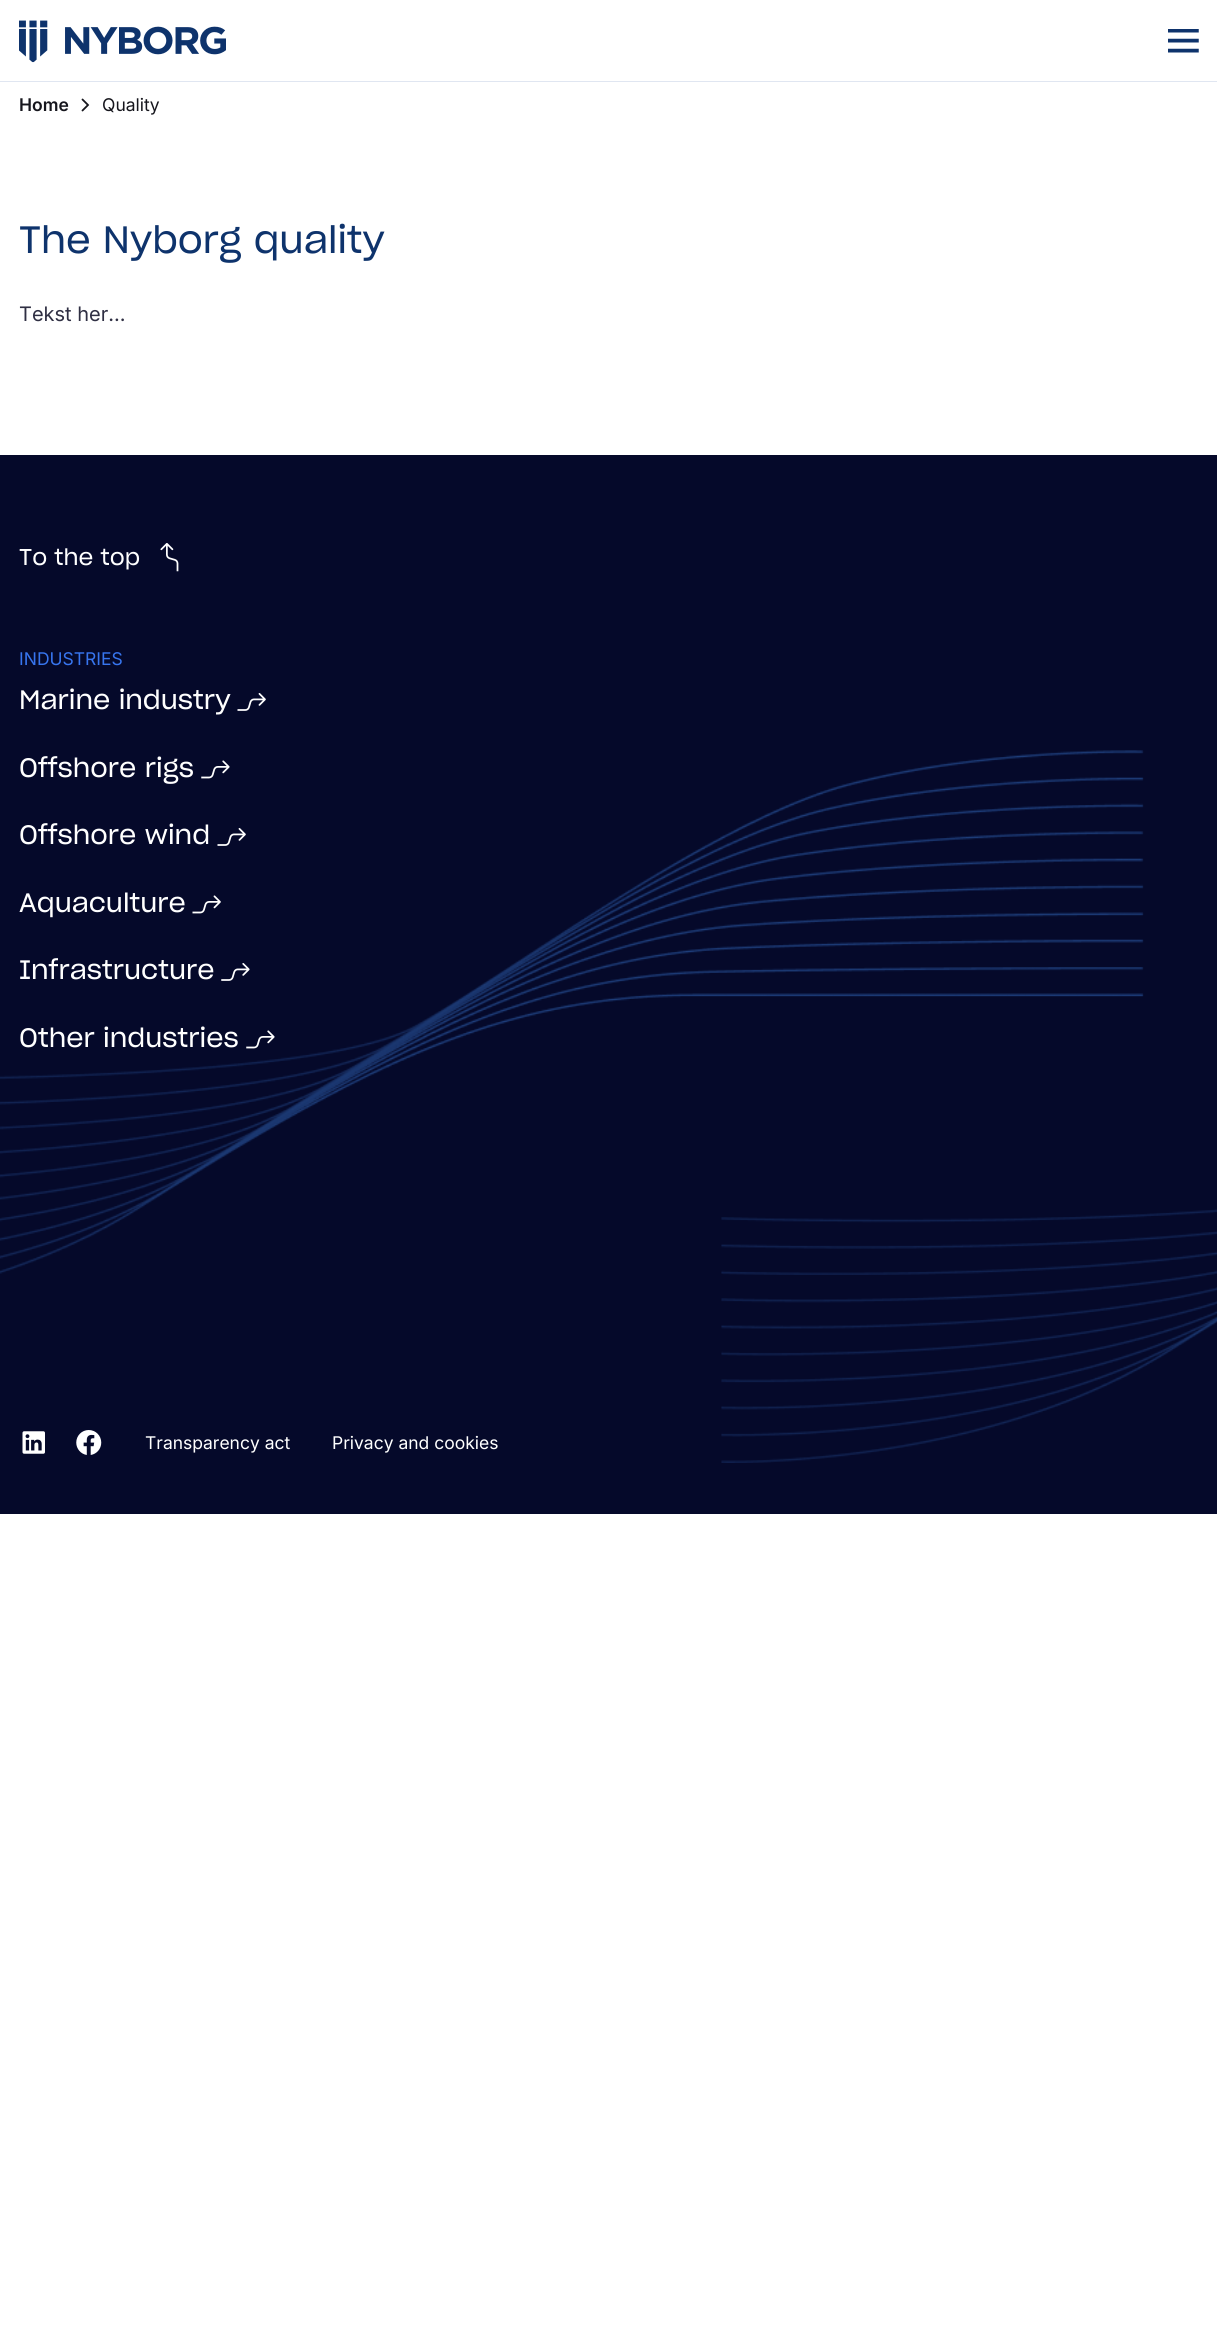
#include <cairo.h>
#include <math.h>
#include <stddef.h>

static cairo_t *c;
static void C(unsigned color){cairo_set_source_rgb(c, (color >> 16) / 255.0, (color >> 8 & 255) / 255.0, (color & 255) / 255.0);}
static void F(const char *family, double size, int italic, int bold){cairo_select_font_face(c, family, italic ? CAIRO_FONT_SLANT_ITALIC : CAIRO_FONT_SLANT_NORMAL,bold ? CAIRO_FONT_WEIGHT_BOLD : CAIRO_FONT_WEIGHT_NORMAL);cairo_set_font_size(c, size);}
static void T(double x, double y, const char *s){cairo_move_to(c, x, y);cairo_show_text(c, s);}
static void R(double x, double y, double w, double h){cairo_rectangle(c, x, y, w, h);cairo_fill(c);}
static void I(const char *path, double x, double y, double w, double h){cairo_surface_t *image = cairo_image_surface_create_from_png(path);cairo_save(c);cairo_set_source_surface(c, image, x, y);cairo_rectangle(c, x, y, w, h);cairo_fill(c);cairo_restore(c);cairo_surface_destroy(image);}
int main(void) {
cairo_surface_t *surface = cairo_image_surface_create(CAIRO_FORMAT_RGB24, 1217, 2332);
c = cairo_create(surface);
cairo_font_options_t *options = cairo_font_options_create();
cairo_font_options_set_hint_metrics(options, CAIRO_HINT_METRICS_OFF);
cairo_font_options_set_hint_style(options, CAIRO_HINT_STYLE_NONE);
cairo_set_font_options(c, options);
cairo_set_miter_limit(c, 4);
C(0xffffff);
cairo_paint(c);
C(0xe0e6f1);
R(0,81,1217,1);
I("1.png",19,20,207,43);
I("2.png",1168,29,31,24);
F("Inter SemiBold",17.5,0,0);
C(0x16161d);
T(19,111,"Home");
cairo_new_path(c);
cairo_move_to(c,82.5,99.5);
cairo_line_to(c,88,105);
cairo_line_to(c,82.5,110.5);
cairo_set_line_width(c,1.8);
cairo_set_line_cap(c,CAIRO_LINE_CAP_ROUND);
cairo_stroke(c);
F("Inter",17.5,0,0);
T(102,111,"Quality");
F("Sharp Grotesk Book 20",37.5,0,0);
C(0x0e336c);
T(19,253,"The Nyborg quality");
F("Inter",20,0,0);
C(0x2f2f43);
T(19,321,"Tekst her...");
C(0x05092a);
R(0,455,1217,1059);
I("3.png",0,750,1217,713);
F("Sharp Grotesk Book 20",22.5,0,0);
C(0xffffff);
T(19,565,"To the top");
I("4.png",160,543,19,29);
F("Inter",17.5,0,0);
C(0x3775ef);
T(19,665,"INDUSTRIES");
F("Sharp Grotesk Book 20",26.25,0,0);
C(0xffffff);
T(19,709,"Marine industry");
I("5.png",237,693,29,18);
T(19,777,"Offshore rigs");
I("6.png",201,760,29,19);
T(19,844,"Offshore wind");
I("5.png",217,828,29,18);
T(19,912,"Aquaculture");
I("7.png",192,895,29,19);
T(19,979,"Infrastructure");
I("8.png",221,963,29,18);
T(19,1047,"Other industries");
I("6.png",246,1030,29,19);
I("9.png",22,1431,23,23);
I("10.png",76,1430,26,25);
F("Inter",17.5,0,0);
T(145,1449,"Transparency act");
T(332,1449,"Privacy and cookies");
cairo_surface_write_to_png(surface, "o.png");
cairo_font_options_destroy(options);
cairo_destroy(c);
cairo_surface_destroy(surface);
return 0;
}
